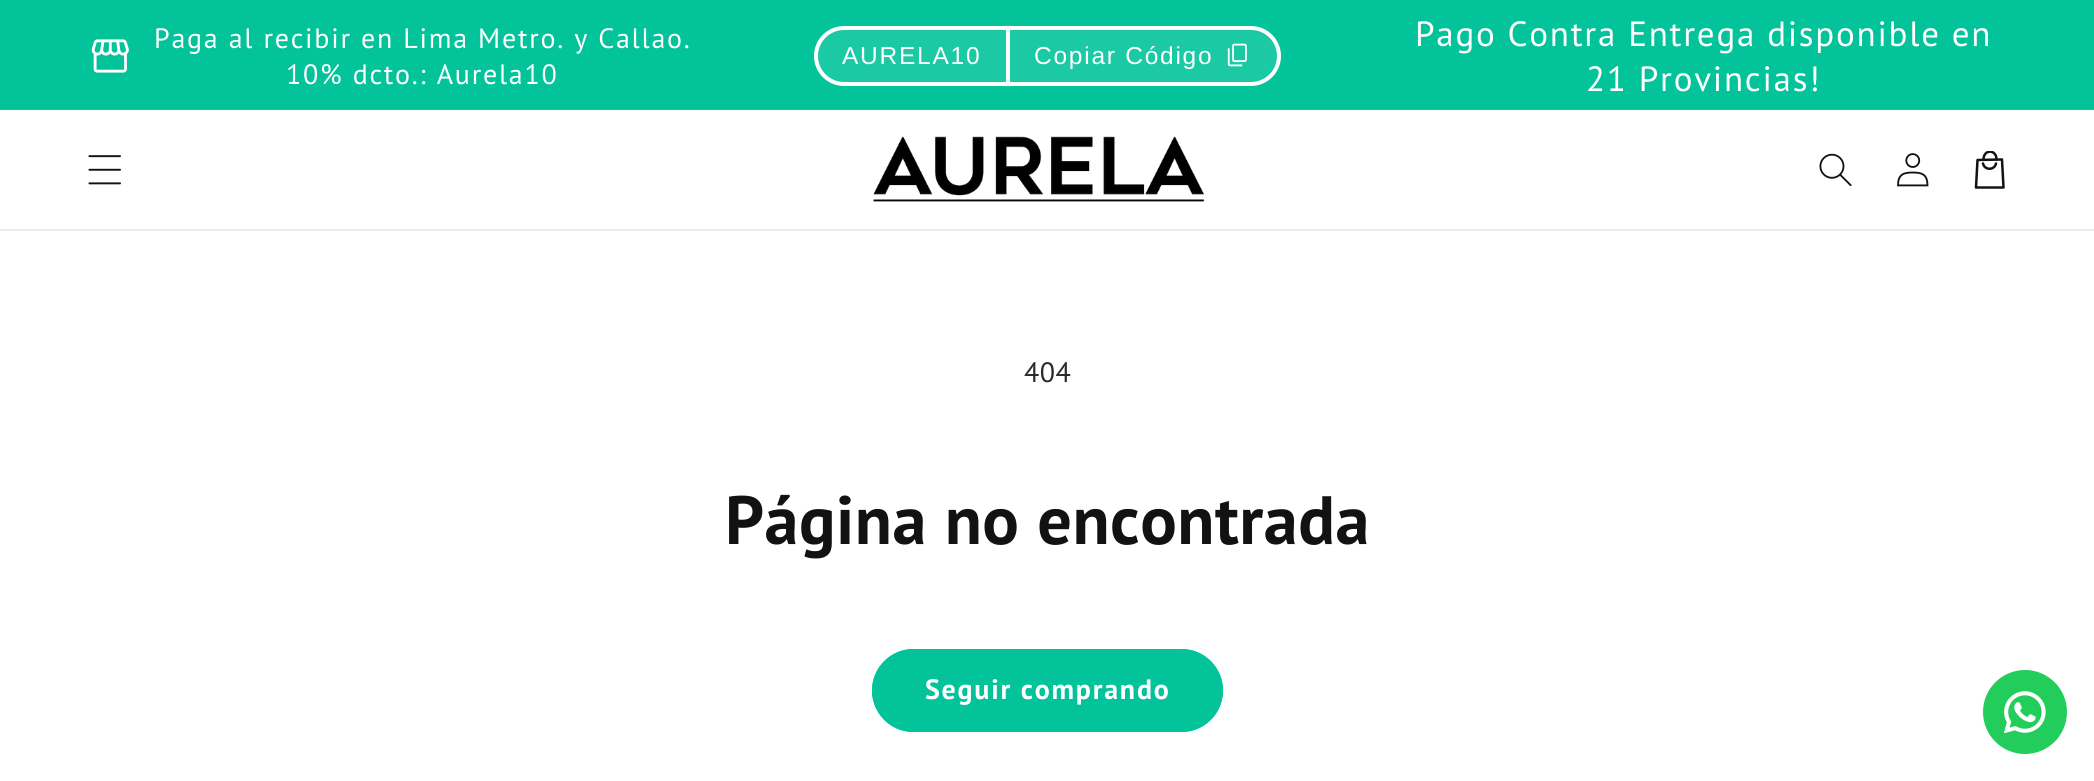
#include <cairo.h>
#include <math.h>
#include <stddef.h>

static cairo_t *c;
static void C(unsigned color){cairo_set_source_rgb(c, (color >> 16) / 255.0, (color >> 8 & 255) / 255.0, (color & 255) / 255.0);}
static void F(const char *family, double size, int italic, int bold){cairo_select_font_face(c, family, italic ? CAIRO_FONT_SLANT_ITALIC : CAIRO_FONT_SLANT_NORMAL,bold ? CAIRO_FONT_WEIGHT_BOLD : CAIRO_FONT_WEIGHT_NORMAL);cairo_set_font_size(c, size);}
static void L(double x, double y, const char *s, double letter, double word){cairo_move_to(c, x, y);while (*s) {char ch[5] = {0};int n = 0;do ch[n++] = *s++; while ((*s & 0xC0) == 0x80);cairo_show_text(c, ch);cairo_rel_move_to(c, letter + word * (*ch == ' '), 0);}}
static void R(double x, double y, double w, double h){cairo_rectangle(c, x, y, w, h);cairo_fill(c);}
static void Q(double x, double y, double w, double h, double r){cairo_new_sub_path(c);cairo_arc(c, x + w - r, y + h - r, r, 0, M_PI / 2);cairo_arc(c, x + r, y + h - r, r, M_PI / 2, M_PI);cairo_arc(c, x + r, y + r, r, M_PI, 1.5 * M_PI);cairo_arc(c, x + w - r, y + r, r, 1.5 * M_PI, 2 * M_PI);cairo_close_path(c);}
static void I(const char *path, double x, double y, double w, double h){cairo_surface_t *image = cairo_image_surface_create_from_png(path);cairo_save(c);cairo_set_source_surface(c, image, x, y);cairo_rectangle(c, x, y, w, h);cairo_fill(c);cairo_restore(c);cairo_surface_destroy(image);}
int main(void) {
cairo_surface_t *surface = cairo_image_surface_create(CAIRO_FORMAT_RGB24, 2094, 781);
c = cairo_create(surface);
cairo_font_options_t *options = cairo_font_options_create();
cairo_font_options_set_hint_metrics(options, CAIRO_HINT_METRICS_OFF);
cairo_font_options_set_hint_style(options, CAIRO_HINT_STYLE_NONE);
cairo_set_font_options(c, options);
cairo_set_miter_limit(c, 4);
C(0xffffff);
cairo_paint(c);
C(0x02c39a);
R(0,0,2094,109);
C(0x16c8a2);
R(0,109,2094,1);
I("1.png",91,39,38,34);
F("PT Sans",28,0,0);
C(0xffffff);
L(154,48,"Paga al recibir en Lima Metro. y Callao.",1.75,0);
L(286,84,"10% dcto.: Aurela10",1.75,0);
C(0x1bc9a4);
Q(816,28,463,56,28);
cairo_fill_preserve(c);
C(0xffffff);
cairo_set_line_width(c,4);
cairo_stroke(c);
R(1006,30,4,52);
F("Liberation Sans",24.5,0,0);
L(842,64,"AURELA10",1.75,0);
L(1034,64,"Copiar Código",1.75,0);
I("2.png",1227,43,20,24);
F("PT Sans",35,0,0);
L(1415,46,"Pago Contra Entrega disponible en",1.75,0);
L(1586,91,"21 Provincias!",1.75,0);
C(0xececec);
R(0,229,2094,2);
I("3.png",88,155,33,30);
I("4.png",873,136,332,66);
I("5.png",1819,153,33,34);
I("6.png",1897,153,32,34);
cairo_new_path(c);
cairo_move_to(c,1977.5,160);
cairo_line_to(c,2002,159.5);
cairo_line_to(c,2003.5,187.5);
cairo_line_to(c,1976,187.5);
cairo_close_path(c);
C(0x121212);
cairo_set_line_width(c,2.5);
cairo_set_line_cap(c,CAIRO_LINE_CAP_ROUND);
cairo_set_line_join(c,CAIRO_LINE_JOIN_ROUND);
cairo_stroke(c);
cairo_save(c);
cairo_rectangle(c,1971,151,38,38);
cairo_clip(c);
cairo_new_path(c);
cairo_move_to(c,1983.5,159.5);
cairo_curve_to(c,1983.5,149,1996.5,149,1996.5,159.5);
cairo_stroke(c);
cairo_restore(c);
cairo_new_path(c);
cairo_move_to(c,1983,163.5);
cairo_curve_to(c,1984.5,170.5,1994.5,170.5,1996,163.5);
cairo_stroke(c);
F("PT Sans",28,0,0);
C(0x2a2a2a);
L(1024,382,"404",.5,0);
F("PT Sans",68.25,0,1);
C(0x121212);
L(725,544,"Página no encontrada",.5,0);
C(0x02c39a);
Q(872,649,351,83,41.5);
cairo_fill(c);
Q(873,650,349,81,40.5);
cairo_set_line_width(c,2);
cairo_set_line_cap(c,CAIRO_LINE_CAP_BUTT);
cairo_set_line_join(c,CAIRO_LINE_JOIN_MITER);
cairo_stroke(c);
F("PT Sans",28,0,1);
C(0xffffff);
L(925,699,"Seguir comprando",1.75,0);
C(0x22cd5b);
cairo_new_path(c);
cairo_arc(c,2025,712,42,0,2 * M_PI);
cairo_fill(c);
I("7.png",2004,691,42,42);
cairo_surface_write_to_png(surface, "o.png");
cairo_font_options_destroy(options);
cairo_destroy(c);
cairo_surface_destroy(surface);
return 0;
}
